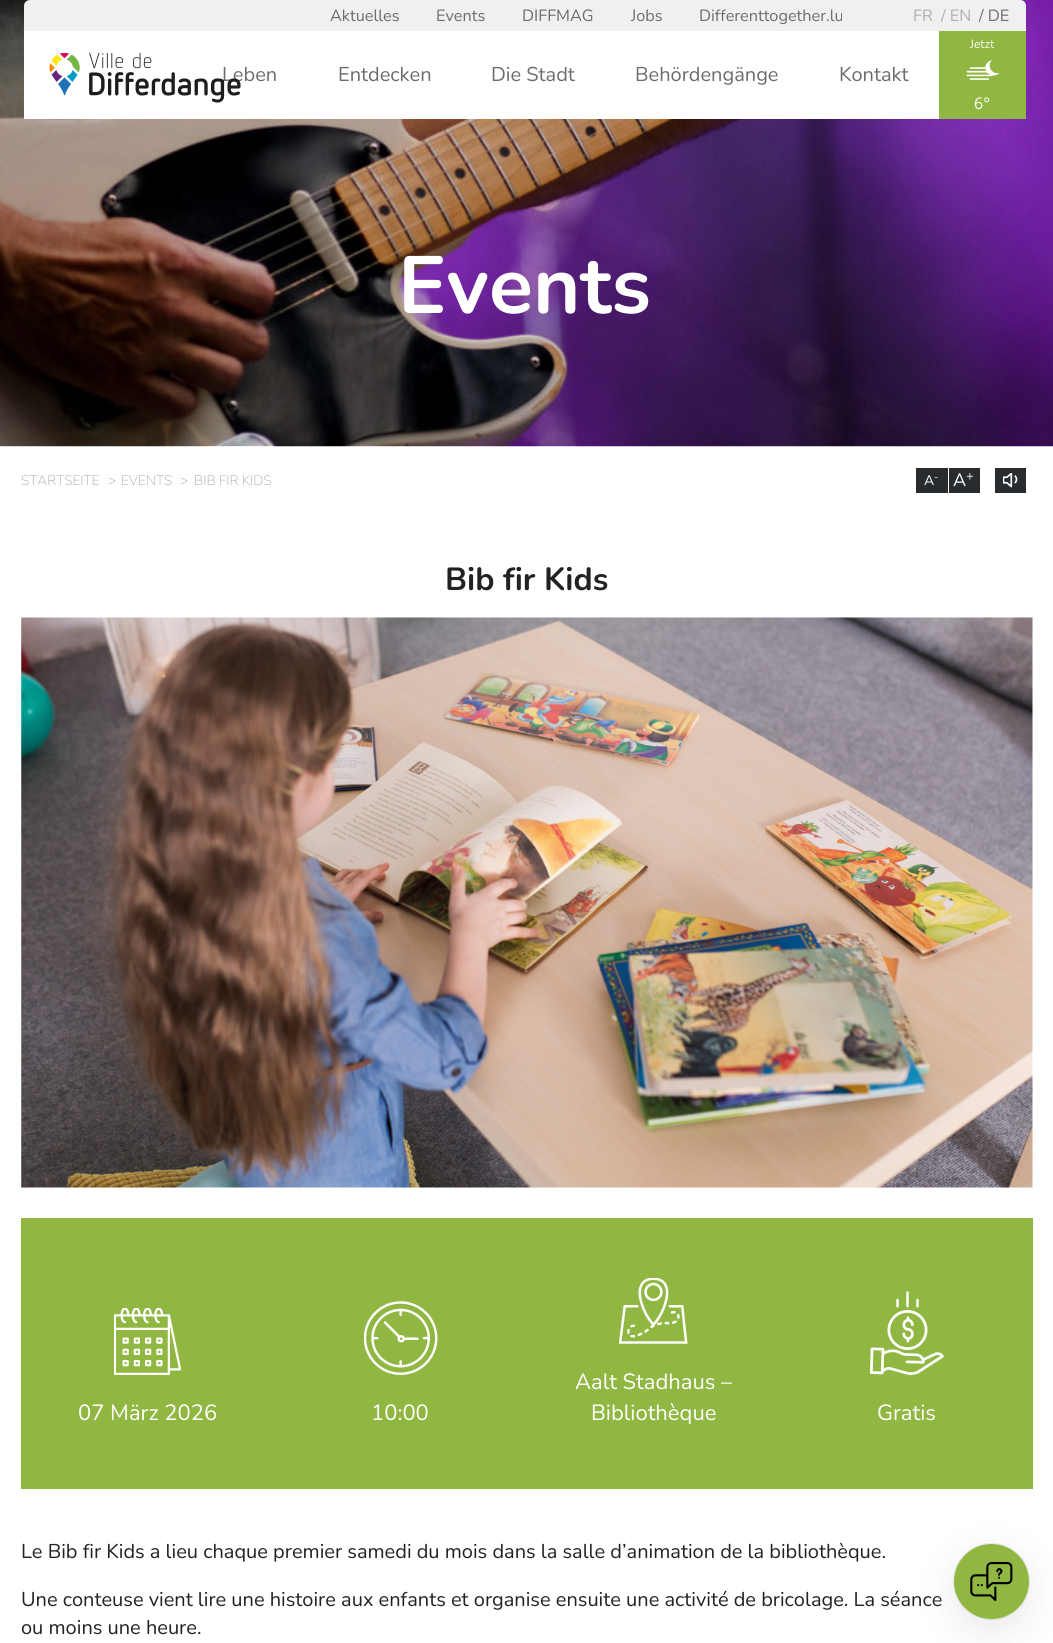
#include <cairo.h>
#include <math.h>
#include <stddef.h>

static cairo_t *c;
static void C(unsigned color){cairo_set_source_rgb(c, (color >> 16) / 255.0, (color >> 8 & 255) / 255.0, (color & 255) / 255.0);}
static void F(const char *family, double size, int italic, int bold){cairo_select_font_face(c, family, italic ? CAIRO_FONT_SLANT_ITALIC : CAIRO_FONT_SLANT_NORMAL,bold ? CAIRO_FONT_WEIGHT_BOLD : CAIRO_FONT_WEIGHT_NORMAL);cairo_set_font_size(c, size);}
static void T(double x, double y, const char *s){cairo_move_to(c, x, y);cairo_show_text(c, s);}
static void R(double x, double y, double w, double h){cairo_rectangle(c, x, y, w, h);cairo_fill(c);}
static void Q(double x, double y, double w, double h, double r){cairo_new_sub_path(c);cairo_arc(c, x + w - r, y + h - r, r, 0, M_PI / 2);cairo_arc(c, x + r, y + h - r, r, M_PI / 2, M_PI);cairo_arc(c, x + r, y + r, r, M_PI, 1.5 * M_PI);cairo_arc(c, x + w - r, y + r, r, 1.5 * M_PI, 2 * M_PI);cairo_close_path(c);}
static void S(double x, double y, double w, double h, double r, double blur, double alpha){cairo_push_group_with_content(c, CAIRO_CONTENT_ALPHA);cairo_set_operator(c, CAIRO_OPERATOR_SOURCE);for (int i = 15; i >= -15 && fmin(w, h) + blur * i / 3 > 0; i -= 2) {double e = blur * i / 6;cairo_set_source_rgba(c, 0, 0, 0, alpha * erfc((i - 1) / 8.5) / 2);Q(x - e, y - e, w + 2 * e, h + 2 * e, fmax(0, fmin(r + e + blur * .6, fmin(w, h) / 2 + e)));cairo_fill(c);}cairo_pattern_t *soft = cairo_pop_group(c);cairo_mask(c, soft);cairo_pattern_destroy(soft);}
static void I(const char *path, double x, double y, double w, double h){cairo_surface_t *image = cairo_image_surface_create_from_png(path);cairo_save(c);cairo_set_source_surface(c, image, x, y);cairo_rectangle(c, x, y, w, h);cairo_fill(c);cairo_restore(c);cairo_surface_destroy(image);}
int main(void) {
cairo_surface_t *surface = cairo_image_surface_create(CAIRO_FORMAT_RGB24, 1053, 1643);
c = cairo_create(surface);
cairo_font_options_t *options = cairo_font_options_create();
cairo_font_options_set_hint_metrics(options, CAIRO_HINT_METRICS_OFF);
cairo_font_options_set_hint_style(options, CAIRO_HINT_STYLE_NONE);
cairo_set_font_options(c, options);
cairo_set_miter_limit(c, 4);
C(0xffffff);
cairo_paint(c);
I("4.png",0,0,1053,447);
C(0xf0f0f0);
cairo_new_path(c);
cairo_move_to(c,30,0);
cairo_line_to(c,1020,0);
cairo_curve_to(c,1023.5,0,1026,2.5,1026,6);
cairo_line_to(c,1026,31);
cairo_line_to(c,24,31);
cairo_line_to(c,24,6);
cairo_curve_to(c,24,2.5,26.5,0,30,0);
cairo_close_path(c);
cairo_fill(c);
F("Nunito",16.25,0,0);
C(0x6c6c6c);
T(330,21,"Aktuelles");
T(436,21,"Events");
T(522,21,"DIFFMAG");
T(631,21,"Jobs");
T(699,21,"Differenttogether.lu");
C(0xaeaeae);
T(913,21,"FR");
T(941,21,"/ EN");
C(0x6c6c6c);
T(979,21,"/ DE");
C(0xffffff);
R(24,31,915,88);
F("Nunito",20,0,0);
C(0x6c6c6c);
T(222,81,"Leben");
I("1.png",49,53,192,50);
T(338,81,"Entdecken");
T(491,81,"Die Stadt");
T(635,81,"Behördengänge");
T(839,81,"Kontakt");
C(0x90b742);
R(939,31,87,88);
F("Nunito",12,0,0);
C(0xffffff);
T(970,48,"Jetzt");
I("2.png",985,60,15,16);
I("3.png",966,67,27,13);
F("Open Sans",16,0,0);
T(974,109,"6°");
F("Nunito",81,0,1);
T(398,313,"Events");
F("Nunito ExtraLight",13.75,0,0);
C(0xa6a6a6);
T(21,485,"STARTSEITE");
T(108,485,">");
T(121,485,"EVENTS");
T(180,485,">");
T(194,485,"BIB FIR KIDS");
C(0x292c2f);
R(916,468,32,25);
F("Nunito",14,0,0);
C(0xffffff);
T(924,485,"A");
F("Nunito",10,0,0);
T(934,480,"-");
C(0x292c2f);
R(949,468,31,25);
F("Nunito",18,0,0);
C(0xffffff);
T(953,486,"A");
F("Nunito",13,0,0);
T(966,480,"+");
C(0x292c2f);
R(995,468,31,25);
I("5.png",1003,473,15,15);
F("Nunito",32,0,1);
C(0x222222);
T(445,590,"Bib fir Kids");
I("6.png",21,617,1012,571);
C(0x90b742);
R(21,1218,1012,271);
I("7.png",114,1308,67,67);
F("Nunito",22,0,0);
C(0xffffff);
T(78,1420,"07 März 2026");
I("8.png",364,1301,74,74);
T(371,1420,"10:00");
I("9.png",619,1278,69,66);
T(575,1389,"Aalt Stadhaus –");
T(591,1420,"Bibliothèque");
I("10.png",870,1291,74,84);
T(877,1420,"Gratis");
F("Nunito",20,0,0);
C(0x222222);
T(21,1558,"Le Bib fir Kids a lieu chaque premier samedi du mois dans la salle d’animation de la bibliothèque.");
T(21,1606,"Une conteuse vient lire une histoire aux enfants et organise ensuite une activité de bricolage. La séance");
T(21,1634,"ou moins une heure.");
cairo_new_path(c);
cairo_arc(c,991.5,1581.5,38,0,2 * M_PI);
cairo_set_source_rgba(c,0.588,0.588,0.588,0.2);
cairo_set_line_width(c,1);
cairo_stroke(c);
C(0x969696);
S(954,1556,75,75,37.5,19,.2);
C(0x90b742);
cairo_arc(c,991.5,1581.5,37.5,0,2 * M_PI);
cairo_fill(c);
I("11.png",970,1562,43,39);
cairo_surface_write_to_png(surface, "o.png");
cairo_font_options_destroy(options);
cairo_destroy(c);
cairo_surface_destroy(surface);
return 0;
}
